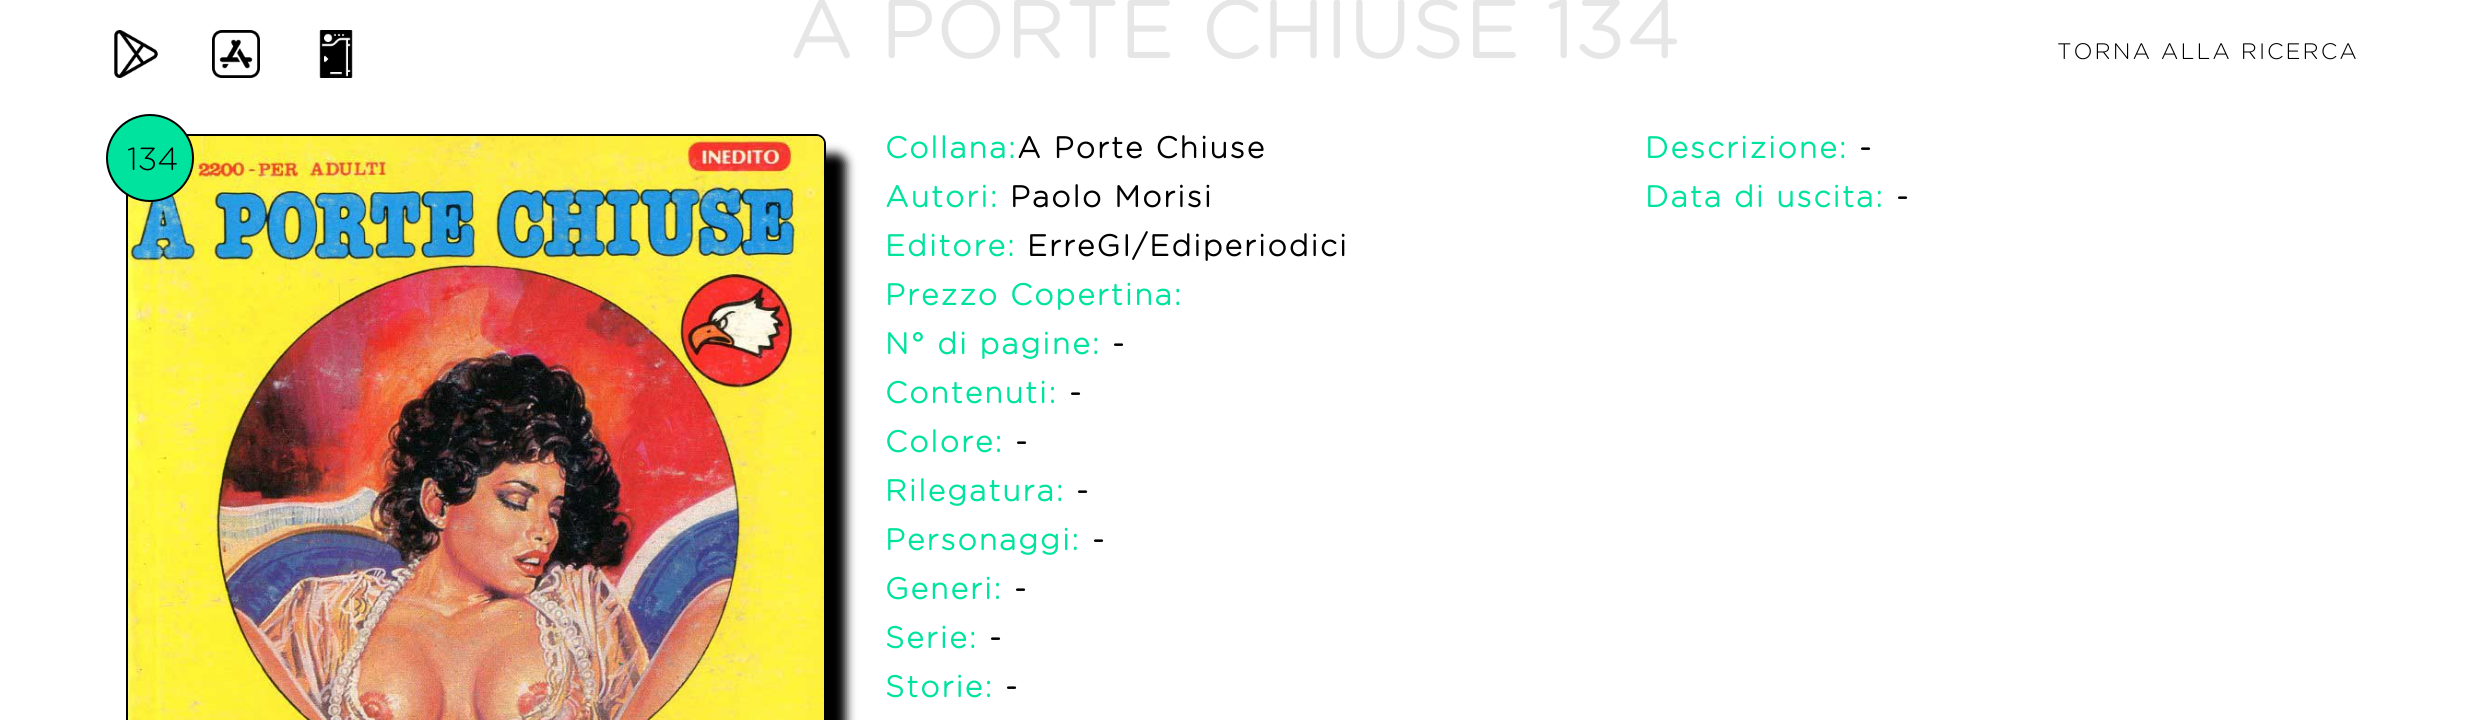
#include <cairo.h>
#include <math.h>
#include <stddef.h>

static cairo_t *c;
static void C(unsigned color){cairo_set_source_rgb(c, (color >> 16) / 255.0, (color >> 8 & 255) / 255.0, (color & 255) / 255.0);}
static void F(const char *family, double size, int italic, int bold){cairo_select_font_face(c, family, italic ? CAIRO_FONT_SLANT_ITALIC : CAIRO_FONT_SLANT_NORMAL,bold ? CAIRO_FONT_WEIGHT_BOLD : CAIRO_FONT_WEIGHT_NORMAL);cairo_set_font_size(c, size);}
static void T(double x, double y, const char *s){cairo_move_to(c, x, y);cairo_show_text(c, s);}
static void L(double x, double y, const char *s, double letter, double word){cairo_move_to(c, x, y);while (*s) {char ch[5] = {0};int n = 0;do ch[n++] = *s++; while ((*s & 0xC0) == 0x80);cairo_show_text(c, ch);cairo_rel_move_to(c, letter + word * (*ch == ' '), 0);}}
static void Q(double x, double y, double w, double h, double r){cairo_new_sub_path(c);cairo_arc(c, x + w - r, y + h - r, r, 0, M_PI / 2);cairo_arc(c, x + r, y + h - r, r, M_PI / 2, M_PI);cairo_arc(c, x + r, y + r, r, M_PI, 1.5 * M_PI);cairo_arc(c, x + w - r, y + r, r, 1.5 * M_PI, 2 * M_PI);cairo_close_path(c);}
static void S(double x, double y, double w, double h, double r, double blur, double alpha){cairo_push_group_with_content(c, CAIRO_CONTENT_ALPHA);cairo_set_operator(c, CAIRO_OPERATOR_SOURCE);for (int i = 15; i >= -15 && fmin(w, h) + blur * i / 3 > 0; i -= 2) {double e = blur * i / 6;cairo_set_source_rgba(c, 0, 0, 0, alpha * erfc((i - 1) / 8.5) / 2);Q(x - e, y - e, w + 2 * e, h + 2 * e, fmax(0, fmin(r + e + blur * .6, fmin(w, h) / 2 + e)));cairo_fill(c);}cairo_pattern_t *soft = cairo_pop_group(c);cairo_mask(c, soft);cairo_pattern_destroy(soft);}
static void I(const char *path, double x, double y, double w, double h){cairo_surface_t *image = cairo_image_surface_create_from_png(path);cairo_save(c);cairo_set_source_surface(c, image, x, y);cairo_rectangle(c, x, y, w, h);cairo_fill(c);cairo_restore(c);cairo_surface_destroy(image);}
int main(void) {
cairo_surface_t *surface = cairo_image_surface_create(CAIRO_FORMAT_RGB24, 2469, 720);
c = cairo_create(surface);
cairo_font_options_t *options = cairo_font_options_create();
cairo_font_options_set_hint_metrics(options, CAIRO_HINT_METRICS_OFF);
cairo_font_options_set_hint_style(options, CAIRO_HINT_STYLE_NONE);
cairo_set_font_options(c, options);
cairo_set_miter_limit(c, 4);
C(0xffffff);
cairo_paint(c);
F("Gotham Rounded",80,0,1);
C(0xe6e6e6);
L(789,58,"A PORTE CHIUSE 134",2,0);
C(0x000000);
S(146,154,700,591,10,5,1);
Q(127,135,698,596,9);
C(0x000000);
cairo_stroke(c);
I("1.png",128,136,696,584);
C(0x00e39e);
cairo_arc(c,150,158,43,0,2 * M_PI);
cairo_fill_preserve(c);
C(0x000000);
cairo_stroke(c);
F("Gotham Rounded Light",32,0,0);
T(127,170,"134");
F("Gotham Rounded",30,0,1);
C(0x00e39e);
L(885,158,"Collana:",2,0);
C(0x000000);
L(1017,158,"A Porte Chiuse",2,0);
C(0x00e39e);
L(885,207,"Autori:",2,0);
C(0x000000);
L(1010,207,"Paolo Morisi",2,0);
C(0x00e39e);
L(885,256,"Editore:",2,0);
C(0x000000);
L(1027,256,"ErreGI/Ediperiodici",2,0);
C(0x00e39e);
L(885,305,"Prezzo Copertina:",2,0);
L(885,354,"N° di pagine:",2,0);
C(0x000000);
L(1112,354,"-",2,0);
C(0x00e39e);
L(885,403,"Contenuti:",2,0);
C(0x000000);
L(1069,403,"-",2,0);
C(0x00e39e);
L(885,452,"Colore:",2,0);
C(0x000000);
L(1015,452,"-",2,0);
C(0x00e39e);
L(885,501,"Rilegatura:",2,0);
C(0x000000);
L(1076,501,"-",2,0);
C(0x00e39e);
L(885,550,"Personaggi:",2,0);
C(0x000000);
L(1092,550,"-",2,0);
C(0x00e39e);
L(885,599,"Generi:",2,0);
C(0x000000);
L(1014,599,"-",2,0);
C(0x00e39e);
L(885,648,"Serie:",2,0);
C(0x000000);
L(989,648,"-",2,0);
C(0x00e39e);
L(885,697,"Storie:",2,0);
C(0x000000);
L(1005,697,"-",2,0);
C(0x00e39e);
L(1645,158,"Descrizione:",2,0);
C(0x000000);
L(1859,158,"-",2,0);
C(0x00e39e);
L(1645,207,"Data di uscita:",2,0);
C(0x000000);
L(1896,207,"-",2,0);
I("2.png",114,30,44,48);
I("3.png",212,30,48,48);
I("4.png",319,30,34,48);
F("Gotham Rounded Light",22.4,0,0);
L(2057,59,"TORNA ALLA RICERCA",2,0);
cairo_surface_write_to_png(surface, "o.png");
cairo_font_options_destroy(options);
cairo_destroy(c);
cairo_surface_destroy(surface);
return 0;
}
